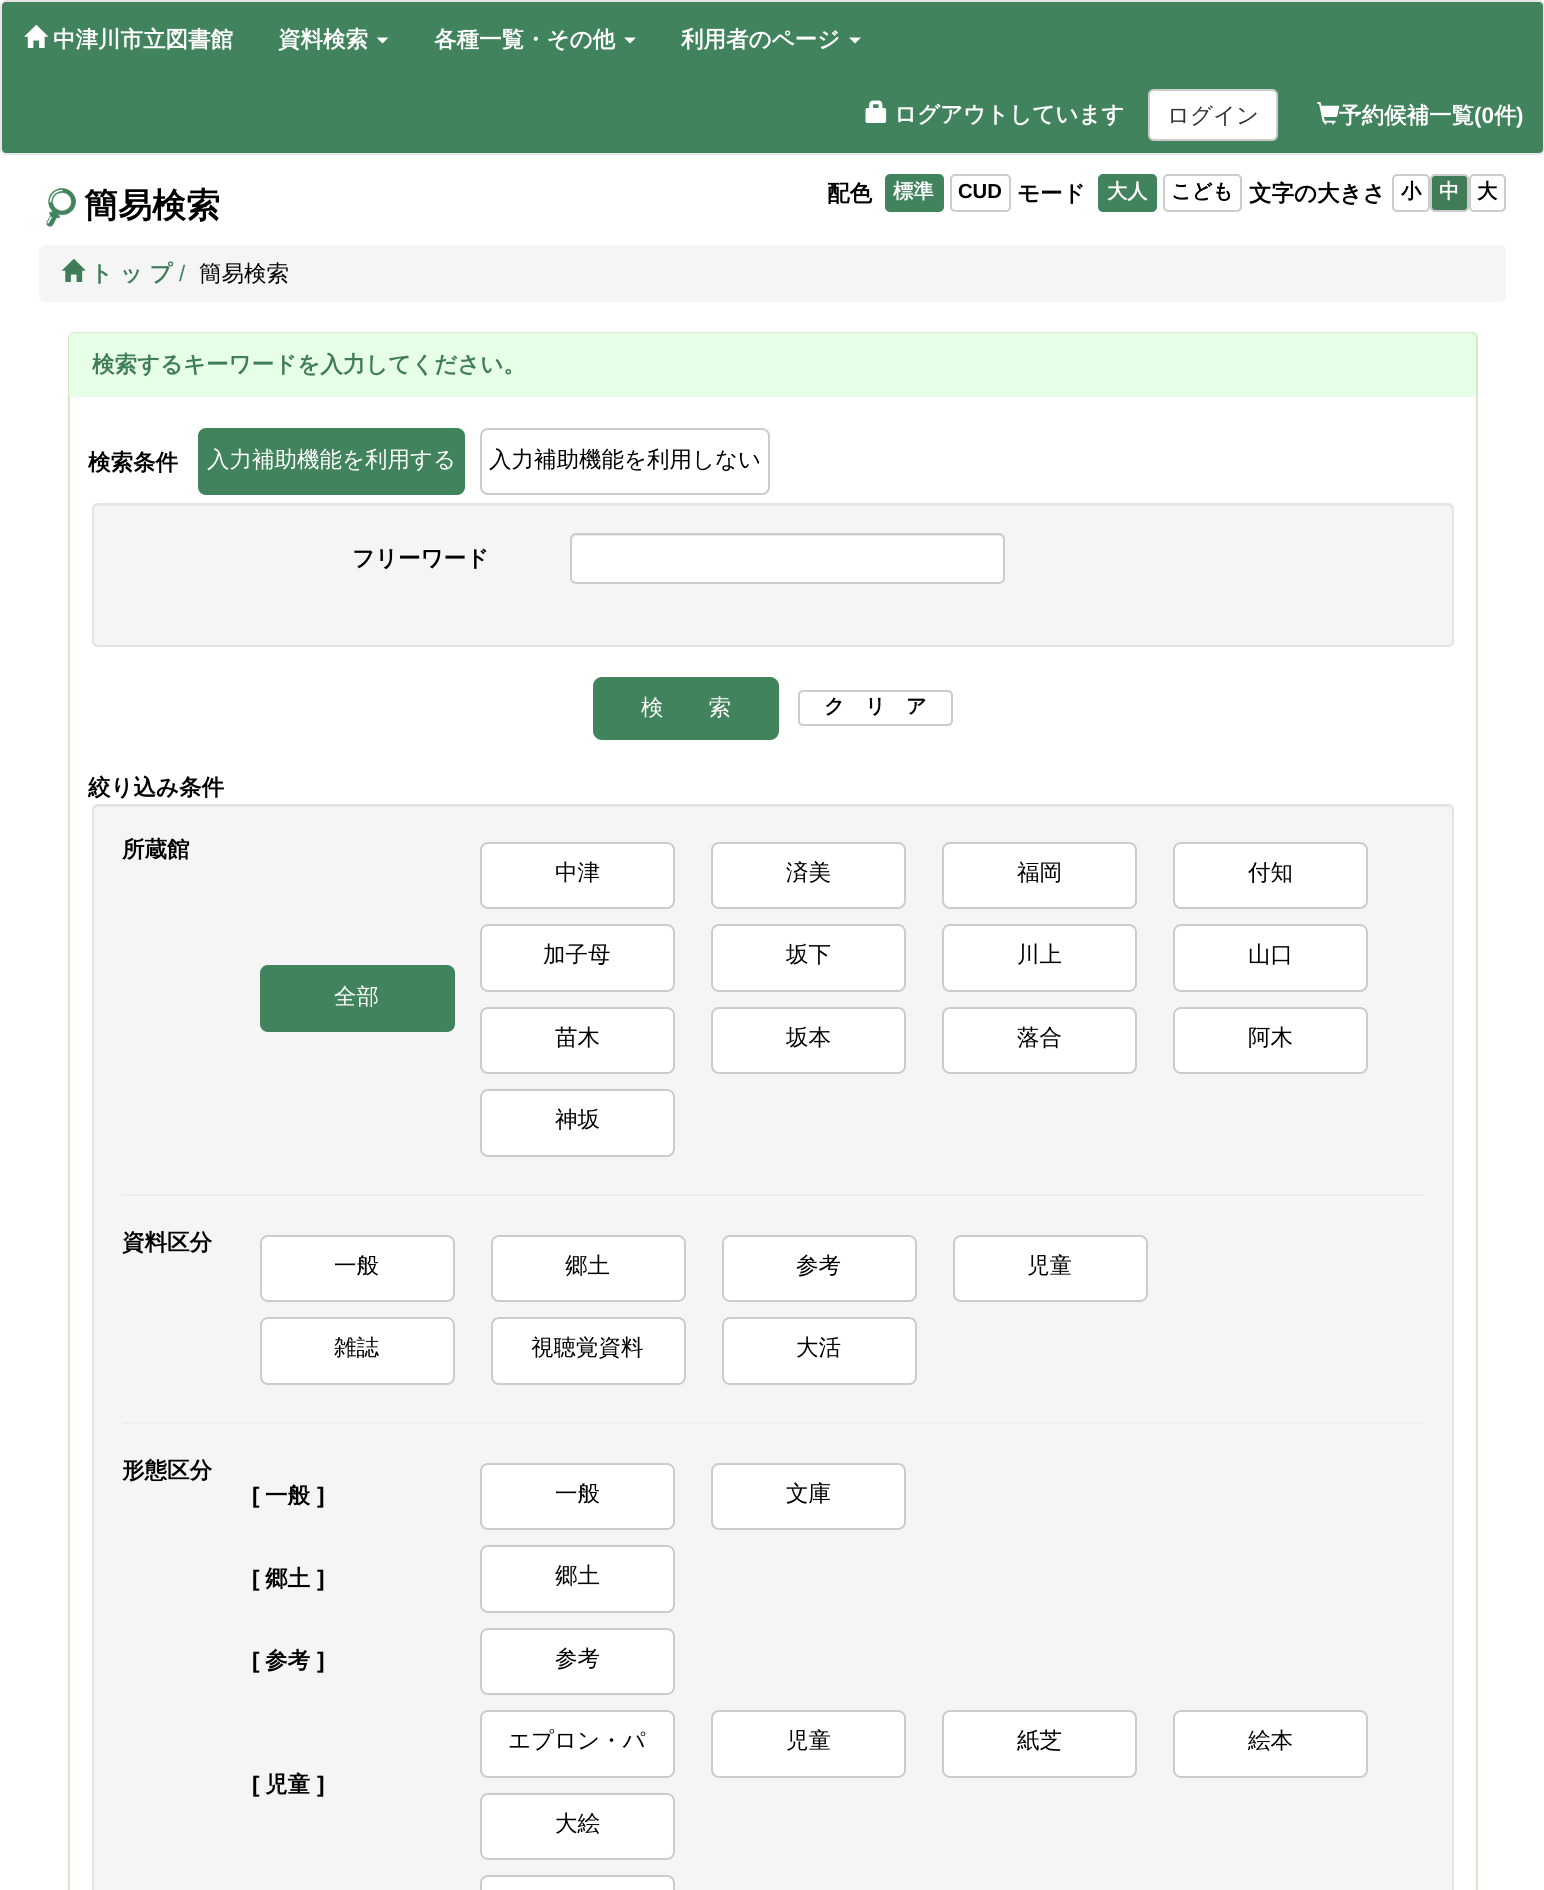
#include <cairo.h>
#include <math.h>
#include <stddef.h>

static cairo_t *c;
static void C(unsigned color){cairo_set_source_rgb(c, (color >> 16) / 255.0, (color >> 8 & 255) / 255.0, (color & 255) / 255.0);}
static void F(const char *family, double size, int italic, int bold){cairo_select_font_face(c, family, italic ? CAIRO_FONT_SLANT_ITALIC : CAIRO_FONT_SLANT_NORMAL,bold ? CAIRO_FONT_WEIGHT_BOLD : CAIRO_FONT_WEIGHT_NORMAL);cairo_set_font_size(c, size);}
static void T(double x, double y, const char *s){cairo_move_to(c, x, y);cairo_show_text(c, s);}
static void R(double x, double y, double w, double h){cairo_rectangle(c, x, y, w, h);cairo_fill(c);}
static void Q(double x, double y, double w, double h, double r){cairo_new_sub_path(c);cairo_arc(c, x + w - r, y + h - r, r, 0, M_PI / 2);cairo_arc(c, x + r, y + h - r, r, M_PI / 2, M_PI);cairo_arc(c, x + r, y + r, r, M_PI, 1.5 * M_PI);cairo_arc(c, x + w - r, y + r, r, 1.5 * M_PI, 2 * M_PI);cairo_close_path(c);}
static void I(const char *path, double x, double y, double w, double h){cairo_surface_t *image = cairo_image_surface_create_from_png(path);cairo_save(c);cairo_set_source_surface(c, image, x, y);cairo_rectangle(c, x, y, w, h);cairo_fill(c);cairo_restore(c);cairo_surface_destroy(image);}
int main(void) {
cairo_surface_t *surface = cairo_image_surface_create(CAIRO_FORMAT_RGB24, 1544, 1890);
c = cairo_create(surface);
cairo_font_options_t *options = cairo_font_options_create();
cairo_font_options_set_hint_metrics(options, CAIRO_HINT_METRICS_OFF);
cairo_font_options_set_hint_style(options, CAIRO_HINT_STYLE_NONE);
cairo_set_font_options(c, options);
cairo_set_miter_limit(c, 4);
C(0xffffff);
cairo_paint(c);
C(0x41835c);
Q(1,1,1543,153,5);
cairo_fill_preserve(c);
C(0xe7e7e7);
cairo_stroke(c);
I("1.png",24,24,25,24);
F("WenQuanYi Zen Hei",22.5,0,1);
C(0xffffff);
T(53,47,"中津川市立図書館");
T(278,47,"資料検索");
cairo_new_path(c);
cairo_move_to(c,376.5,37.5);
cairo_line_to(c,388.5,37.5);
cairo_line_to(c,382.5,43.5);
cairo_close_path(c);
cairo_fill(c);
T(434,47,"各種一覧・その他");
cairo_new_path(c);
cairo_move_to(c,624,37.5);
cairo_line_to(c,636,37.5);
cairo_line_to(c,630,43.5);
cairo_close_path(c);
cairo_fill(c);
T(681,47,"利用者のページ");
cairo_new_path(c);
cairo_move_to(c,849,37.5);
cairo_line_to(c,861,37.5);
cairo_line_to(c,855,43.5);
cairo_close_path(c);
cairo_fill(c);
I("2.png",865,100,22,23);
T(894,122,"ログアウトしています");
Q(1149,90,128,50,5);
cairo_fill_preserve(c);
C(0xcccccc);
cairo_stroke(c);
F("WenQuanYi Zen Hei Medium",22.5,0,0);
C(0x333333);
T(1167,123,"ログイン");
F("WenQuanYi Zen Hei",22.5,0,1);
C(0xffffff);
T(1339,123,"予約候補一覧");
I("3.png",1317,102,23,23);
F("Liberation Sans",22.5,0,1);
T(1474,123,"(0");
F("WenQuanYi Zen Hei",22.5,0,1);
T(1494,123,"件");
F("Liberation Sans",22.5,0,1);
T(1516,123,")");
I("4.png",46,188,30,39);
F("WenQuanYi Zen Hei",34,0,1);
C(0x000000);
T(84,217,"簡易検索");
F("WenQuanYi Zen Hei",22.5,0,1);
T(827,201,"配色");
C(0x41835c);
Q(886,175,57,36,4);
cairo_fill_preserve(c);
cairo_stroke(c);
F("WenQuanYi Zen Hei",20.25,0,1);
C(0xffffff);
T(893,198,"標準");
Q(951,175,59,36,4);
C(0xcccccc);
cairo_stroke(c);
F("Liberation Sans",20.25,0,1);
C(0x000000);
T(958,198,"CUD");
F("WenQuanYi Zen Hei",22.5,0,1);
T(1017,201,"モード");
C(0x41835c);
Q(1099,175,57,36,4);
cairo_fill_preserve(c);
cairo_stroke(c);
F("WenQuanYi Zen Hei",20.25,0,1);
C(0xffffff);
T(1107,198,"大人");
Q(1164,175,77,36,4);
C(0xcccccc);
cairo_stroke(c);
C(0x000000);
T(1171,198,"こども");
F("WenQuanYi Zen Hei",22.5,0,1);
T(1249,201,"文字の大きさ");
Q(1393,175,36,36,4);
C(0xcccccc);
cairo_stroke(c);
F("WenQuanYi Zen Hei",20.25,0,1);
C(0x000000);
T(1401,198,"小");
C(0x3f7c57);
Q(1431,175,37,36,4);
cairo_fill_preserve(c);
C(0xcccccc);
cairo_stroke(c);
C(0xffffff);
T(1439,198,"中");
Q(1470,175,35,36,4);
C(0xcccccc);
cairo_stroke(c);
C(0x000000);
T(1477,198,"大");
C(0xf5f5f5);
Q(39,245,1467,57,6);
cairo_fill(c);
I("5.png",61,258,25,24);
F("WenQuanYi Zen Hei",22.5,0,1);
C(0x3f7c57);
T(90,281,"ト ッ プ");
F("Liberation Sans",22.5,0,0);
C(0x41835c);
T(179,281,"/");
F("WenQuanYi Zen Hei Medium",22.5,0,0);
C(0x000000);
T(199,281,"簡易検索");
Q(69,333,1408,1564,5);
C(0xd6e9c6);
cairo_stroke(c);
C(0xe6ffe6);
cairo_new_path(c);
cairo_move_to(c,74,333);
cairo_line_to(c,1471,333);
cairo_curve_to(c,1474,333,1476,335,1476,338);
cairo_line_to(c,1476,396);
cairo_line_to(c,69,396);
cairo_line_to(c,69,338);
cairo_curve_to(c,69,335,71,333,74,333);
cairo_close_path(c);
cairo_fill(c);
R(69,396,1407,1);
F("WenQuanYi Zen Hei",22.5,0,1);
C(0x3f7c57);
T(92,372,"検索するキーワードを入力してください。");
C(0x000000);
T(88,470,"検索条件");
C(0x41835c);
Q(199,429,265,65,7);
cairo_fill_preserve(c);
cairo_stroke(c);
F("WenQuanYi Zen Hei Medium",22.5,0,0);
C(0xffffff);
T(207,467,"入力補助機能を利用する");
Q(481,429,288,65,7);
C(0xcccccc);
cairo_stroke(c);
C(0x000000);
T(489,467,"入力補助機能を利用しない");
C(0xf5f5f5);
Q(92,503,1362,144,6);
cairo_fill(c);
C(0xe9e9e9);
cairo_new_path(c);
cairo_move_to(c,98,506);
cairo_line_to(c,1448,506);
cairo_curve_to(c,1450,506,1452,508,1452,510);
cairo_curve_to(c,1452,507,1450,504,1447,504);
cairo_line_to(c,98,504);
cairo_curve_to(c,95,504,93,507,93,510);
cairo_curve_to(c,93,508,95,506,98,506);
cairo_close_path(c);
cairo_fill(c);
Q(93,504,1360,142,5);
C(0xe3e3e3);
cairo_stroke(c);
F("WenQuanYi Zen Hei",22.5,0,1);
C(0x000000);
T(352,566,"フリーワード");
C(0xffffff);
Q(570,533,435,51,6);
cairo_fill(c);
C(0xececec);
cairo_new_path(c);
cairo_move_to(c,576,536);
cairo_line_to(c,999,536);
cairo_curve_to(c,1001,536,1004,538,1004,540);
cairo_curve_to(c,1004,537,1002,534,999,534);
cairo_line_to(c,577,534);
cairo_curve_to(c,574,534,572,537,572,540);
cairo_curve_to(c,572,538,574,536,576,536);
cairo_close_path(c);
cairo_fill(c);
Q(571,534,433,49,5);
C(0xcccccc);
cairo_stroke(c);
C(0x41835c);
Q(594,678,184,61,8);
cairo_fill_preserve(c);
cairo_stroke(c);
F("WenQuanYi Zen Hei Medium",22.5,0,0);
C(0xffffff);
T(641,715,"検　　索");
Q(799,691,153,34,4);
C(0xcccccc);
cairo_stroke(c);
F("WenQuanYi Zen Hei",20.25,0,1);
C(0x000000);
T(824,713,"ク　リ　ア");
F("WenQuanYi Zen Hei",22.5,0,1);
T(88,795,"絞り込み条件");
C(0xf5f5f5);
Q(92,804,1362,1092,6);
cairo_fill(c);
C(0xe9e9e9);
cairo_new_path(c);
cairo_move_to(c,98,807);
cairo_line_to(c,1448,807);
cairo_curve_to(c,1450,807,1452,809,1452,812);
cairo_curve_to(c,1452,809,1450,806,1447,806);
cairo_line_to(c,98,806);
cairo_curve_to(c,95,806,93,809,93,812);
cairo_curve_to(c,93,809,95,807,98,807);
cairo_close_path(c);
cairo_fill(c);
Q(93,805,1360,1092,5);
C(0xe3e3e3);
cairo_stroke(c);
C(0x000000);
T(122,857,"所蔵館");
C(0x41835c);
Q(261,966,193,65,7);
cairo_fill_preserve(c);
cairo_stroke(c);
F("WenQuanYi Zen Hei Medium",22.5,0,0);
C(0xffffff);
T(334,1004,"全部");
Q(481,843,193,65,7);
cairo_fill_preserve(c);
C(0xcccccc);
cairo_stroke(c);
C(0x000000);
T(555,880,"中津");
C(0xffffff);
Q(712,843,193,65,7);
cairo_fill_preserve(c);
C(0xcccccc);
cairo_stroke(c);
C(0x000000);
T(786,880,"済美");
C(0xffffff);
Q(943,843,193,65,7);
cairo_fill_preserve(c);
C(0xcccccc);
cairo_stroke(c);
C(0x000000);
T(1017,880,"福岡");
C(0xffffff);
Q(1174,843,193,65,7);
cairo_fill_preserve(c);
C(0xcccccc);
cairo_stroke(c);
C(0x000000);
T(1248,880,"付知");
C(0xffffff);
Q(481,925,193,66,7);
cairo_fill_preserve(c);
C(0xcccccc);
cairo_stroke(c);
C(0x000000);
T(543,962,"加子母");
C(0xffffff);
Q(712,925,193,66,7);
cairo_fill_preserve(c);
C(0xcccccc);
cairo_stroke(c);
C(0x000000);
T(786,962,"坂下");
C(0xffffff);
Q(943,925,193,66,7);
cairo_fill_preserve(c);
C(0xcccccc);
cairo_stroke(c);
C(0x000000);
T(1017,962,"川上");
C(0xffffff);
Q(1174,925,193,66,7);
cairo_fill_preserve(c);
C(0xcccccc);
cairo_stroke(c);
C(0x000000);
T(1248,962,"山口");
C(0xffffff);
Q(481,1008,193,65,7);
cairo_fill_preserve(c);
C(0xcccccc);
cairo_stroke(c);
C(0x000000);
T(555,1045,"苗木");
C(0xffffff);
Q(712,1008,193,65,7);
cairo_fill_preserve(c);
C(0xcccccc);
cairo_stroke(c);
C(0x000000);
T(786,1045,"坂本");
C(0xffffff);
Q(943,1008,193,65,7);
cairo_fill_preserve(c);
C(0xcccccc);
cairo_stroke(c);
C(0x000000);
T(1017,1045,"落合");
C(0xffffff);
Q(1174,1008,193,65,7);
cairo_fill_preserve(c);
C(0xcccccc);
cairo_stroke(c);
C(0x000000);
T(1248,1045,"阿木");
C(0xffffff);
Q(481,1090,193,66,7);
cairo_fill_preserve(c);
C(0xcccccc);
cairo_stroke(c);
C(0x000000);
T(555,1127,"神坂");
C(0xeeeeee);
R(122,1194,1302,2);
F("WenQuanYi Zen Hei",22.5,0,1);
C(0x000000);
T(122,1250,"資料区分");
C(0xffffff);
Q(261,1236,193,65,7);
cairo_fill_preserve(c);
C(0xcccccc);
cairo_stroke(c);
F("WenQuanYi Zen Hei Medium",22.5,0,0);
C(0x000000);
T(334,1273,"一般");
C(0xffffff);
Q(492,1236,193,65,7);
cairo_fill_preserve(c);
C(0xcccccc);
cairo_stroke(c);
C(0x000000);
T(565,1273,"郷土");
C(0xffffff);
Q(723,1236,193,65,7);
cairo_fill_preserve(c);
C(0xcccccc);
cairo_stroke(c);
C(0x000000);
T(796,1273,"参考");
C(0xffffff);
Q(954,1236,193,65,7);
cairo_fill_preserve(c);
C(0xcccccc);
cairo_stroke(c);
C(0x000000);
T(1027,1273,"児童");
C(0xffffff);
Q(261,1318,193,66,7);
cairo_fill_preserve(c);
C(0xcccccc);
cairo_stroke(c);
C(0x000000);
T(334,1355,"雑誌");
C(0xffffff);
Q(492,1318,193,66,7);
cairo_fill_preserve(c);
C(0xcccccc);
cairo_stroke(c);
C(0x000000);
T(531,1355,"視聴覚資料");
C(0xffffff);
Q(723,1318,193,66,7);
cairo_fill_preserve(c);
C(0xcccccc);
cairo_stroke(c);
C(0x000000);
T(796,1355,"大活");
C(0xeeeeee);
R(122,1422,1302,2);
F("WenQuanYi Zen Hei",22.5,0,1);
C(0x000000);
T(122,1478,"形態区分");
F("Liberation Sans",22.5,0,1);
T(252,1503,"[");
F("WenQuanYi Zen Hei",22.5,0,1);
T(265,1503,"一般");
F("Liberation Sans",22.5,0,1);
T(317,1503,"]");
C(0xffffff);
Q(481,1464,193,65,7);
cairo_fill_preserve(c);
C(0xcccccc);
cairo_stroke(c);
F("WenQuanYi Zen Hei Medium",22.5,0,0);
C(0x000000);
T(555,1501,"一般");
C(0xffffff);
Q(712,1464,193,65,7);
cairo_fill_preserve(c);
C(0xcccccc);
cairo_stroke(c);
C(0x000000);
T(786,1501,"文庫");
F("Liberation Sans",22.5,0,1);
T(252,1586,"[");
F("WenQuanYi Zen Hei",22.5,0,1);
T(265,1586,"郷土");
F("Liberation Sans",22.5,0,1);
T(317,1586,"]");
C(0xffffff);
Q(481,1546,193,66,7);
cairo_fill_preserve(c);
C(0xcccccc);
cairo_stroke(c);
F("WenQuanYi Zen Hei Medium",22.5,0,0);
C(0x000000);
T(555,1583,"郷土");
F("Liberation Sans",22.5,0,1);
T(252,1668,"[");
F("WenQuanYi Zen Hei",22.5,0,1);
T(265,1668,"参考");
F("Liberation Sans",22.5,0,1);
T(317,1668,"]");
C(0xffffff);
Q(481,1629,193,65,7);
cairo_fill_preserve(c);
C(0xcccccc);
cairo_stroke(c);
F("WenQuanYi Zen Hei Medium",22.5,0,0);
C(0x000000);
T(555,1666,"参考");
F("Liberation Sans",22.5,0,1);
T(252,1792,"[");
F("WenQuanYi Zen Hei",22.5,0,1);
T(265,1792,"児童");
F("Liberation Sans",22.5,0,1);
T(317,1792,"]");
C(0xffffff);
Q(481,1711,193,66,7);
cairo_fill_preserve(c);
C(0xcccccc);
cairo_stroke(c);
F("WenQuanYi Zen Hei Medium",22.5,0,0);
C(0x000000);
T(508,1748,"エプロン・パ");
C(0xffffff);
Q(712,1711,193,66,7);
cairo_fill_preserve(c);
C(0xcccccc);
cairo_stroke(c);
C(0x000000);
T(786,1748,"児童");
C(0xffffff);
Q(943,1711,193,66,7);
cairo_fill_preserve(c);
C(0xcccccc);
cairo_stroke(c);
C(0x000000);
T(1017,1748,"紙芝");
C(0xffffff);
Q(1174,1711,193,66,7);
cairo_fill_preserve(c);
C(0xcccccc);
cairo_stroke(c);
C(0x000000);
T(1248,1748,"絵本");
C(0xffffff);
Q(481,1794,193,65,7);
cairo_fill_preserve(c);
C(0xcccccc);
cairo_stroke(c);
C(0x000000);
T(555,1831,"大絵");
C(0xffffff);
Q(481,1876,193,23,7);
cairo_fill_preserve(c);
C(0xcccccc);
cairo_stroke(c);
cairo_surface_write_to_png(surface, "o.png");
cairo_font_options_destroy(options);
cairo_destroy(c);
cairo_surface_destroy(surface);
return 0;
}
